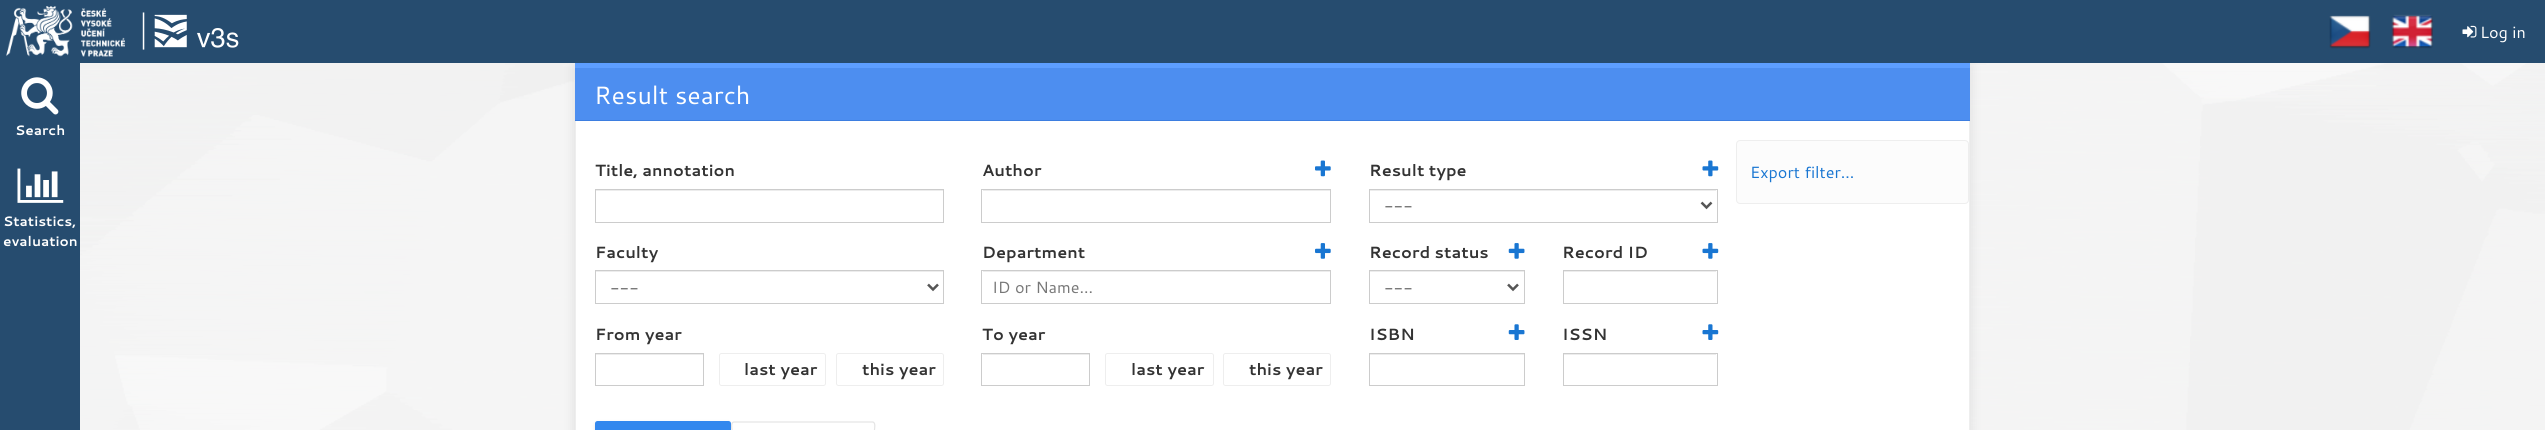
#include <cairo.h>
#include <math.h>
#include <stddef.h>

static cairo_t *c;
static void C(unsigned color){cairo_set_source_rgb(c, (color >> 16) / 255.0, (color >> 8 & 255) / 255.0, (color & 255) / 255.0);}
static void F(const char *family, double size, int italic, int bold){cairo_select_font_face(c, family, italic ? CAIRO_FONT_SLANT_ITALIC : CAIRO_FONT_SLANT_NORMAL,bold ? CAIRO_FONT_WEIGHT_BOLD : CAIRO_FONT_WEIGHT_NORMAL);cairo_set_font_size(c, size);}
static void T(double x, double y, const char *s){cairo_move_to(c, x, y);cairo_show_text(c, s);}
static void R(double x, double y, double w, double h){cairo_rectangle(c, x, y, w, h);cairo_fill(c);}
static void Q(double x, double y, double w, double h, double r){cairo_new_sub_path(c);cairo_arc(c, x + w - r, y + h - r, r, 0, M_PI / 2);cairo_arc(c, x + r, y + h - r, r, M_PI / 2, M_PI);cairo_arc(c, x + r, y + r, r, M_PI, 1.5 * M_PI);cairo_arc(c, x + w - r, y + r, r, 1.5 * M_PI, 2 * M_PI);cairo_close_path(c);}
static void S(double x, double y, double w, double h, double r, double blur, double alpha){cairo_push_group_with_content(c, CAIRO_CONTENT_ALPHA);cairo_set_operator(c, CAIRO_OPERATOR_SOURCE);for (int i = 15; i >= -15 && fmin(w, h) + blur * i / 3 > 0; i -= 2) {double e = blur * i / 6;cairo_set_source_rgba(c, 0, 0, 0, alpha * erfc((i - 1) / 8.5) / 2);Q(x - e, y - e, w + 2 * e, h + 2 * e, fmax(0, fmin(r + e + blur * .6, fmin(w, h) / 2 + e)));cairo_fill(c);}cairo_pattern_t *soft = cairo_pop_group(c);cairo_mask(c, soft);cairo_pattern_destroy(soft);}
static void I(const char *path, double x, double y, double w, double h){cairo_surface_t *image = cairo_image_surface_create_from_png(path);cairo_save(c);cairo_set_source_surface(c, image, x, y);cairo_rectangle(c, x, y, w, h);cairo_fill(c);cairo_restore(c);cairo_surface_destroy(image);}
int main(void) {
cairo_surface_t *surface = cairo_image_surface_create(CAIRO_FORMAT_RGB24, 2545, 430);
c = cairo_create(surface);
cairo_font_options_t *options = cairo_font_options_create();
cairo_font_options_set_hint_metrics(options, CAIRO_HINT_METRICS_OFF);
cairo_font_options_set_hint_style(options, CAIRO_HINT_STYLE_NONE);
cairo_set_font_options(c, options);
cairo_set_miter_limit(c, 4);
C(0xffffff);
cairo_paint(c);
I("1.png",80,63,2465,367);
C(0x000000);
S(575,66,1395,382,0,6,.1);
C(0x264c6f);
R(0,0,2545,63);
I("2.png",6,6,119,51);
I("3.png",142,12,97,38);
I("4.png",2329,15,42,34);
I("5.png",2391,14,42,35);
I("6.png",2462,25,15,13);
F("Cantarell",16.25,0,0);
C(0xffffff);
T(2480,38,"Log in");
C(0x264c6f);
R(0,63,80,367);
I("7.png",21,77,38,38);
F("Cantarell",13.75,0,1);
C(0xffffff);
T(15,135,"Search");
I("8.png",17,168,47,35);
T(3,226,"Statistics,");
T(3,246,"evaluation");
R(576,121,1393,309);
cairo_rectangle(c,575.5,63.5,1394,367);
C(0xeeeeee);
cairo_set_line_width(c,1);
cairo_stroke(c);
C(0x4d8ef0);
R(575,68,1395,52);
C(0x5d9eff);
R(575,63,1395,5);
C(0x3d7ee0);
R(575,120,1395,1);
F("Cantarell",25,0,0);
C(0xffffff);
T(594,104,"Result search");
F("Cantarell",16.25,0,1);
C(0x333333);
T(595,176,"Title, annotation");
C(0xececec);
R(596,190,347,1);
cairo_rectangle(c,595.5,189.5,348,33);
C(0xcccccc);
cairo_stroke(c);
C(0x333333);
T(982,176,"Author");
I("9.png",1315,160,16,17);
C(0xececec);
R(983,190,347,1);
cairo_rectangle(c,981.5,189.5,349,33);
C(0xcccccc);
cairo_stroke(c);
C(0x333333);
T(1369,176,"Result type");
I("10.png",1702,160,17,17);
C(0xececec);
R(1370,190,346,1);
cairo_rectangle(c,1369.5,189.5,348,33);
C(0xcccccc);
cairo_stroke(c);
cairo_new_path(c);
cairo_move_to(c,1701.5,202.5);
cairo_line_to(c,1706.5,207.5);
cairo_line_to(c,1711.5,202.5);
C(0x555555);
cairo_set_line_width(c,2.5);
cairo_stroke(c);
F("Cantarell",16.25,0,0);
T(1384,212,"---");
F("Cantarell",16.25,0,1);
C(0x333333);
T(595,258,"Faculty");
C(0xececec);
R(596,271,347,1);
cairo_rectangle(c,595.5,270.5,348,33);
C(0xcccccc);
cairo_set_line_width(c,1);
cairo_stroke(c);
cairo_new_path(c);
cairo_move_to(c,928,284.5);
cairo_line_to(c,933,289.5);
cairo_line_to(c,938,284.5);
C(0x555555);
cairo_set_line_width(c,2.5);
cairo_stroke(c);
F("Cantarell",16.25,0,0);
T(610,294,"---");
F("Cantarell",16.25,0,1);
C(0x333333);
T(982,258,"Department");
I("11.png",1315,243,16,16);
C(0xececec);
R(983,271,347,1);
cairo_rectangle(c,981.5,270.5,349,33);
C(0xcccccc);
cairo_set_line_width(c,1);
cairo_stroke(c);
F("Cantarell",16.25,0,0);
C(0x777777);
T(992,293,"ID or Name…");
F("Cantarell",16.25,0,1);
C(0x333333);
T(1369,258,"Record status");
I("12.png",1508,243,17,16);
C(0xececec);
R(1370,271,154,1);
cairo_rectangle(c,1369.5,270.5,155,33);
C(0xcccccc);
cairo_stroke(c);
cairo_new_path(c);
cairo_move_to(c,1508,284.5);
cairo_line_to(c,1513,289.5);
cairo_line_to(c,1518,284.5);
C(0x555555);
cairo_set_line_width(c,2.5);
cairo_stroke(c);
F("Cantarell",16.25,0,0);
T(1384,294,"---");
F("Cantarell",16.25,0,1);
C(0x333333);
T(1562,258,"Record ID");
I("13.png",1702,243,17,16);
C(0xececec);
R(1564,271,152,1);
cairo_rectangle(c,1563.5,270.5,154,33);
C(0xcccccc);
cairo_set_line_width(c,1);
cairo_stroke(c);
C(0x333333);
T(595,340,"From year");
C(0xececec);
R(596,354,107,1);
cairo_rectangle(c,595.5,353.5,108,32);
C(0xcccccc);
cairo_stroke(c);
Q(719.5,353.5,106,32,2);
C(0xeeeeee);
cairo_stroke(c);
C(0x333333);
T(744,375,"last year");
Q(836.5,353.5,107,32,2);
C(0xeeeeee);
cairo_stroke(c);
C(0x333333);
T(862,375,"this year");
T(982,340,"To year");
C(0xececec);
R(983,354,106,1);
cairo_rectangle(c,981.5,353.5,108,32);
C(0xcccccc);
cairo_stroke(c);
Q(1105.5,353.5,108,32,2);
C(0xeeeeee);
cairo_stroke(c);
C(0x333333);
T(1131,375,"last year");
Q(1223.5,353.5,107,32,2);
C(0xeeeeee);
cairo_stroke(c);
C(0x333333);
T(1249,375,"this year");
T(1369,340,"ISBN");
I("14.png",1508,324,17,16);
C(0xececec);
R(1370,354,154,1);
cairo_rectangle(c,1369.5,353.5,155,32);
C(0xcccccc);
cairo_stroke(c);
C(0x333333);
T(1562,340,"ISSN");
I("15.png",1702,324,17,16);
C(0xececec);
R(1564,354,152,1);
cairo_rectangle(c,1563.5,353.5,154,32);
C(0xcccccc);
cairo_stroke(c);
C(0x000000);
S(595,423,136,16,2.5,2,.1);
C(0x3388ee);
Q(595,421,136,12,2.5);
cairo_fill(c);
C(0xffffff);
Q(731,421,144,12,2.5);
cairo_fill(c);
cairo_new_path(c);
cairo_move_to(c,732.5,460);
cairo_curve_to(c,731,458.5,732,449,732,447);
cairo_line_to(c,732,429.5);
cairo_curve_to(c,732,429,730.5,422,734,422);
cairo_line_to(c,872.5,422);
cairo_curve_to(c,876,422,874.5,429,874.5,429.5);
cairo_line_to(c,874.5,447);
cairo_curve_to(c,874.5,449,875.5,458.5,874,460);
C(0xe4e4e4);
cairo_set_line_width(c,1.2);
cairo_stroke(c);
C(0xfcfcfc);
Q(1736.5,140.5,232,63,3.5);
cairo_fill_preserve(c);
C(0xeeeeee);
cairo_set_line_width(c,1);
cairo_stroke(c);
F("Cantarell",16.25,0,0);
C(0x1976d2);
T(1750,178,"Export filter…");
cairo_surface_write_to_png(surface, "o.png");
cairo_font_options_destroy(options);
cairo_destroy(c);
cairo_surface_destroy(surface);
return 0;
}
